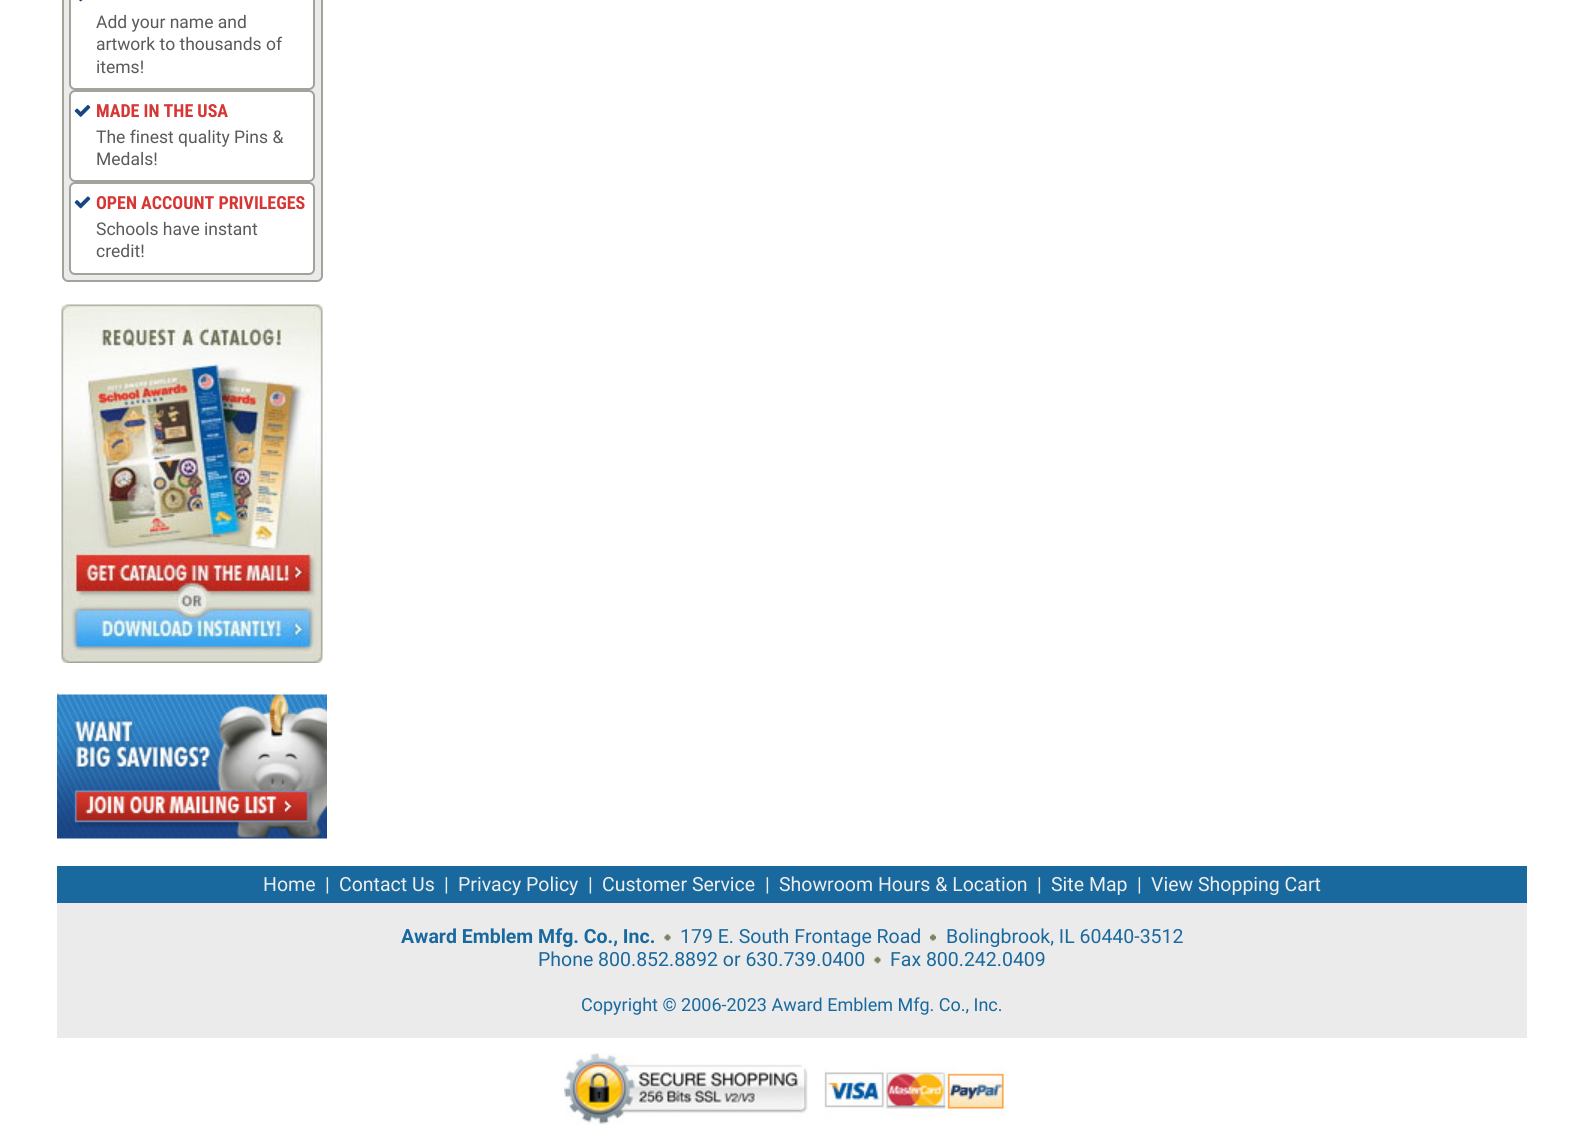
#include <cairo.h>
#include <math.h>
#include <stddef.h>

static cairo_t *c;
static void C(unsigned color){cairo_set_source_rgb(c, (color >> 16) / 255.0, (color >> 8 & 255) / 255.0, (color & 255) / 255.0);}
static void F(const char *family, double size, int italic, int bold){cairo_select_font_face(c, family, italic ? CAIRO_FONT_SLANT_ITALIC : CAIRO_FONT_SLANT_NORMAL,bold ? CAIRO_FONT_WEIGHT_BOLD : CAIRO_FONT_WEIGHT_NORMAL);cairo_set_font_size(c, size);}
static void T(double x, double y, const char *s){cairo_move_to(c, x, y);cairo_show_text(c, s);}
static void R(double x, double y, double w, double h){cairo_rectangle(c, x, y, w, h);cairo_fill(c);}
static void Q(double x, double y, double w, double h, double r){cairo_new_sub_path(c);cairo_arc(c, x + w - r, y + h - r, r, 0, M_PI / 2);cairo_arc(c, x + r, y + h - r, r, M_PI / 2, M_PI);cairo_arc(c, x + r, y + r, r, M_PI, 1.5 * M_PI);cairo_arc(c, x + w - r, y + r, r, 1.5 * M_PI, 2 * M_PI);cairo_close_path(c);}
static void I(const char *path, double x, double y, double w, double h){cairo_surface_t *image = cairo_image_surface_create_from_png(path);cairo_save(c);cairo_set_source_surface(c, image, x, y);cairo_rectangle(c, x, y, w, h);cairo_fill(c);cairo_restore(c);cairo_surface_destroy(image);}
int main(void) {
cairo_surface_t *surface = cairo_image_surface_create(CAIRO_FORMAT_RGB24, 1584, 1129);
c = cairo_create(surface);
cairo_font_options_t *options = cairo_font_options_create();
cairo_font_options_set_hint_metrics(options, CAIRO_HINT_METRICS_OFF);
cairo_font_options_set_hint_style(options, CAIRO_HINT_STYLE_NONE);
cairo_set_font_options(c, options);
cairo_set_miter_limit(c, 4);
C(0xffffff);
cairo_paint(c);
C(0xebebeb);
Q(63,-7,259,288,5);
cairo_fill_preserve(c);
C(0xa2a499);
cairo_stroke(c);
C(0xffffff);
Q(70,-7,244,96,5);
cairo_fill_preserve(c);
C(0xa2a499);
cairo_stroke(c);
I("1.png",79,0,4,2);
F("Roboto",17.5,0,0);
C(0x5a5a5a);
T(96,28,"Add your name and");
T(96,50,"artwork to thousands of");
T(96,73,"items!");
C(0xffffff);
Q(70,91,244,90,5);
cairo_fill_preserve(c);
C(0xa2a499);
cairo_stroke(c);
I("2.png",74,105,17,12);
F("Roboto Condensed",18,0,1);
C(0xd63634);
T(96,117,"MADE IN THE USA");
F("Roboto",17.5,0,0);
C(0x5a5a5a);
T(96,143,"The finest quality Pins &");
T(96,165,"Medals!");
C(0xffffff);
Q(70,183,244,91,5);
cairo_fill_preserve(c);
C(0xa2a499);
cairo_stroke(c);
I("3.png",74,196,17,13);
F("Roboto Condensed",18,0,1);
C(0xd63634);
T(96,209,"OPEN ACCOUNT PRIVILEGES");
F("Roboto",17.5,0,0);
C(0x5a5a5a);
T(96,235,"Schools have instant");
T(96,257,"credit!");
I("4.png",61,304,262,359);
I("5.png",57,693,270,146);
C(0xebebeb);
R(57,903,1470,135);
C(0x19699f);
R(57,866,1470,37);
F("Roboto",19.5,0,0);
C(0xeeeeee);
T(263,891,"Home");
T(325,891,"|");
T(339,891,"Contact Us");
T(444,891,"|");
T(458,891,"Privacy Policy");
T(588,891,"|");
T(602,891,"Customer Service");
T(765,891,"|");
T(779,891,"Showroom Hours & Location");
T(1037,891,"|");
T(1051,891,"Site Map");
T(1137,891,"|");
T(1151,891,"View Shopping Cart");
F("Roboto",19.5,0,1);
C(0x19699f);
T(401,943,"Award Emblem Mfg. Co., Inc.");
I("6.png",664,934,7,7);
F("Roboto",19.5,0,0);
T(680,943,"179 E. South Frontage Road");
I("7.png",930,934,6,7);
T(946,943,"Bolingbrook, IL 60440-3512");
T(538,966,"Phone 800.852.8892 or 630.739.0400");
I("8.png",874,956,7,8);
T(890,966,"Fax 800.242.0409");
F("Roboto",18,0,0);
T(581,1011,"Copyright © 2006-2023 Award Emblem Mfg. Co., Inc.");
I("9.png",564,1053,244,72);
I("10.png",823,1067,182,51);
cairo_surface_write_to_png(surface, "o.png");
cairo_font_options_destroy(options);
cairo_destroy(c);
cairo_surface_destroy(surface);
return 0;
}
